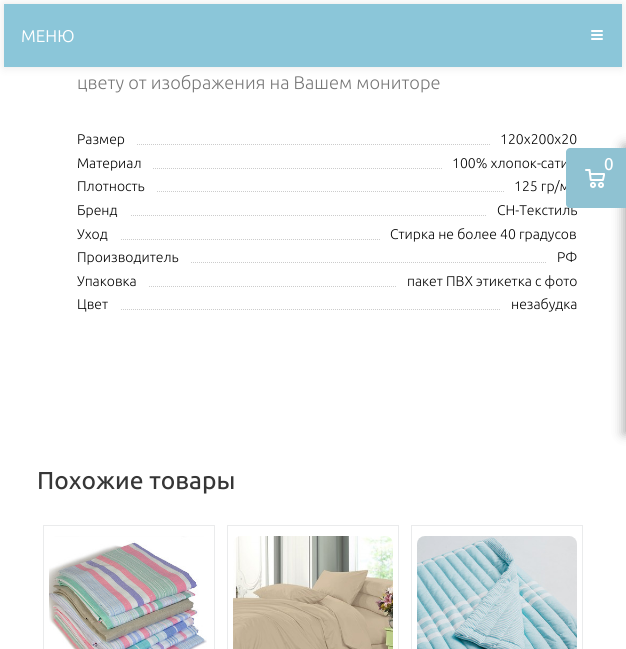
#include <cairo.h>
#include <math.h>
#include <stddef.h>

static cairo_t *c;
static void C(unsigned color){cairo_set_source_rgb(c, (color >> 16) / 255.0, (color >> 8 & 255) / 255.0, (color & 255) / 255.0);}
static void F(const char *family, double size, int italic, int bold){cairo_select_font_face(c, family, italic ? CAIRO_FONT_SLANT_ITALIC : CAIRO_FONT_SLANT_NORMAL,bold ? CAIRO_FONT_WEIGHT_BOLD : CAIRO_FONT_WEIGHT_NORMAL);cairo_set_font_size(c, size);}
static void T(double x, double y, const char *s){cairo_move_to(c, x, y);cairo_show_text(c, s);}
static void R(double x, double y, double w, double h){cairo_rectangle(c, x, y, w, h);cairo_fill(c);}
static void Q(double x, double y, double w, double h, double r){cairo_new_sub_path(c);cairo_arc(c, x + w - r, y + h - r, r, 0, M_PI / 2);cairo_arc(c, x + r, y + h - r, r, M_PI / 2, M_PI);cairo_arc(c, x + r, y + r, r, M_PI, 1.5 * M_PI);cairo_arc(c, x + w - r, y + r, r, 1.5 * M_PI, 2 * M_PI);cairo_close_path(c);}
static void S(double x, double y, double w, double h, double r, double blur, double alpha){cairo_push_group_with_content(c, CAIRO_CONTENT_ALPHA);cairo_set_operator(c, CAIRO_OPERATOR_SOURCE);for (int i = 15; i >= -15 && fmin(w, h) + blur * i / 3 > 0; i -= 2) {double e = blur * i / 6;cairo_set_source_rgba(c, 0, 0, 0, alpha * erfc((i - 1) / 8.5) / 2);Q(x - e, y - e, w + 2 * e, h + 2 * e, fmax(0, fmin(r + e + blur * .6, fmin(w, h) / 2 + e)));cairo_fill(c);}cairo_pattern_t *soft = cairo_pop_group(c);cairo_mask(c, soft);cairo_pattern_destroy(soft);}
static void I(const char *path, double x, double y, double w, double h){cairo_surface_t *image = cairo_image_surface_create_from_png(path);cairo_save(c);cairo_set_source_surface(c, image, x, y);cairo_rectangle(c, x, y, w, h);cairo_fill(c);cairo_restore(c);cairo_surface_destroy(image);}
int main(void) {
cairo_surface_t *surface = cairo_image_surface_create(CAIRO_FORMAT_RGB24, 626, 649);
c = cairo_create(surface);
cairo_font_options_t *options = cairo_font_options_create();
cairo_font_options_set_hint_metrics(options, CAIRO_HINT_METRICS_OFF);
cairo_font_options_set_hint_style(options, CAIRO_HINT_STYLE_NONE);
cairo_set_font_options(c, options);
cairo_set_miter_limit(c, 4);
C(0xffffff);
cairo_paint(c);
C(0x000000);
S(4,4,618,63,0,5,.1);
C(0x8bc6d9);
R(4,4,618,63);
F("Ubuntu",17,0,0);
C(0xffffff);
T(21,42,"МЕНЮ");
I("1.png",591,30,12,10);
C(0x000000);
S(624,146,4,287,0,6,.35);
F("Ubuntu Light",14,0,0);
C(0x000000);
T(452,168,"100% хлопок-сати");
T(514,191,"125 гр/м");
T(497,215,"СН-Текстиль");
C(0x8fc2d2);
cairo_new_path(c);
cairo_move_to(c,570,148);
cairo_line_to(c,626,148);
cairo_line_to(c,626,208);
cairo_line_to(c,570,208);
cairo_curve_to(c,568,208,566,206,566,204);
cairo_line_to(c,566,152);
cairo_curve_to(c,566,150,568,148,570,148);
cairo_close_path(c);
cairo_fill(c);
I("2.png",585,169,20,19);
F("Ubuntu Medium",17,0,0);
C(0xffffff);
T(604,170,"0");
F("Ubuntu Light",18.25,0,0);
C(0x767676);
T(77,89,"цвету от изображения на Вашем мониторе");
I("3.png",137,144,189,1);
F("Ubuntu Light",14,0,0);
C(0x000000);
T(77,144,"Размер");
I("4.png",327,144,163,1);
T(500,144,"120х200х20");
I("5.png",153,168,173,1);
T(77,168,"Материал");
I("6.png",327,168,115,1);
I("7.png",157,191,169,1);
T(77,191,"Плотность");
I("8.png",327,191,177,1);
I("9.png",131,215,195,1);
T(77,215,"Бренд");
I("10.png",327,215,159,1);
I("11.png",121,239,205,1);
T(77,239,"Уход");
I("12.png",327,239,53,1);
T(390,239,"Стирка не более 40 градусов");
I("13.png",191,262,135,1);
T(77,262,"Производитель");
I("14.png",327,262,219,1);
T(557,262,"РФ");
I("8.png",149,286,177,1);
T(77,286,"Упаковка");
I("15.png",327,286,69,1);
T(407,286,"пакет ПВХ этикетка с фото");
I("11.png",121,309,205,1);
T(77,309,"Цвет");
I("5.png",327,309,173,1);
T(511,309,"незабудка");
F("Ubuntu Medium",24.5,0,0);
C(0x363636);
T(37,489,"Похожие товары");
cairo_rectangle(c,43.5,525.5,171,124);
C(0xeaebec);
cairo_set_line_width(c,1);
cairo_stroke(c);
I("16.png",49,536,158,113);
cairo_rectangle(c,227.5,525.5,171,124);
cairo_stroke(c);
I("17.png",233,536,160,113);
cairo_rectangle(c,411.5,525.5,171,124);
cairo_stroke(c);
I("18.png",417,536,160,113);
cairo_surface_write_to_png(surface, "o.png");
cairo_font_options_destroy(options);
cairo_destroy(c);
cairo_surface_destroy(surface);
return 0;
}
